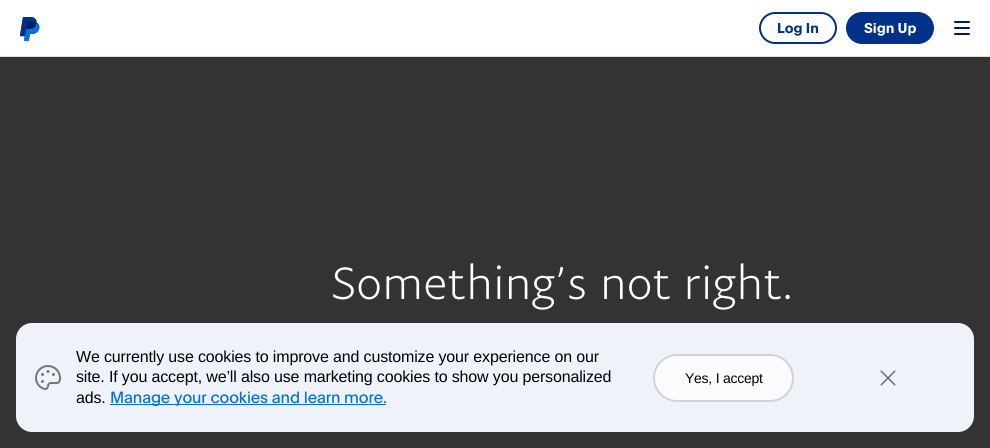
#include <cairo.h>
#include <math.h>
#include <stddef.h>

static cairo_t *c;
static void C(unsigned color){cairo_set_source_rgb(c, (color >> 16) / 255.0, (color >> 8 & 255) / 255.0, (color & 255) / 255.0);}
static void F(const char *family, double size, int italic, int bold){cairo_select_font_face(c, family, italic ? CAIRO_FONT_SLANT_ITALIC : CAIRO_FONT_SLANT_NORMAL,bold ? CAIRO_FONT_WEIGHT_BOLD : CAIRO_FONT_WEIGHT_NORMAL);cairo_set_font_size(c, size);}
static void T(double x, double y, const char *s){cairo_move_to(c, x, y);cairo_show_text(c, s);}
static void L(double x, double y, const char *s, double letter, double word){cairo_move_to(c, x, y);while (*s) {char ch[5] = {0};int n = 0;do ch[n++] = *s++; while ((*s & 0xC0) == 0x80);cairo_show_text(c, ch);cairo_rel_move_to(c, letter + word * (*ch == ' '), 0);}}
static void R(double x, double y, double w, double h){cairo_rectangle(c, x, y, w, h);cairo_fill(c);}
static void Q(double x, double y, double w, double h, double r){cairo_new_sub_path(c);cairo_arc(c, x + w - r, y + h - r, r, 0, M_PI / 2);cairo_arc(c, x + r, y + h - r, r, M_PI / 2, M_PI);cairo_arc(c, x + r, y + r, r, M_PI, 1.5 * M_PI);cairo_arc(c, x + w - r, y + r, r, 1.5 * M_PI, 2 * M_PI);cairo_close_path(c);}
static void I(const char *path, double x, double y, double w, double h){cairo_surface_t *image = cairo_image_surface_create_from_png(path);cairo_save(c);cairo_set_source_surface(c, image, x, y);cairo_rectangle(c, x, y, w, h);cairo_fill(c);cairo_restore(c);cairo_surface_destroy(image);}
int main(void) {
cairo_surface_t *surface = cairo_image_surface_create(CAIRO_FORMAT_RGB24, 990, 448);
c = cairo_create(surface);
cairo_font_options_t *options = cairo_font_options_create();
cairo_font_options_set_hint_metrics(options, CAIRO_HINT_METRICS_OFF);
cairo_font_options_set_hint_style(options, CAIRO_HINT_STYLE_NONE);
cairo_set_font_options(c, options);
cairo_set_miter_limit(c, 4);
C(0x333333);
cairo_paint(c);
C(0xffffff);
R(0,0,990,56);
I("1.png",20,17,20,24);
Q(760,13,76,30,15);
C(0x003087);
cairo_stroke(c);
F("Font",14,0,1);
T(777,33,"Log In");
Q(847,13,86,30,15);
cairo_fill_preserve(c);
cairo_stroke(c);
C(0xffffff);
T(864,33,"Sign Up");
I("2.png",954,21,16,14);
C(0xe6e0d9);
R(0,56,990,1);
F("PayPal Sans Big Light",45.75,0,0);
C(0xffffff);
L(332,299,"Something’s not right.",.9,0);
C(0xf0f2f9);
Q(16,323,958,109,16);
cairo_fill(c);
I("3.png",35,365,26,25);
F("Liberation Sans",16,0,0);
C(0x000000);
L(76,362,"We currently use cookies to improve and customize your experience on our",-.15,0);
L(76,382,"site. If you accept, we’ll also use marketing cookies to show you personalized",-.15,0);
L(76,403,"ads.",-.15,0);
C(0x0070e0);
R(110,404,276,1);
F("Font",16,0,0);
L(110,403,"Manage your cookies and learn more.",-.15,0);
C(0xfbfbfd);
Q(654,355,139,46,23);
cairo_fill_preserve(c);
C(0xcfd3d8);
cairo_stroke(c);
F("Liberation Sans",14,0,0);
C(0x000000);
L(685,383,"Yes, I accept",-.25,0);
I("4.png",880,370,16,16);
cairo_surface_write_to_png(surface, "o.png");
cairo_font_options_destroy(options);
cairo_destroy(c);
cairo_surface_destroy(surface);
return 0;
}
